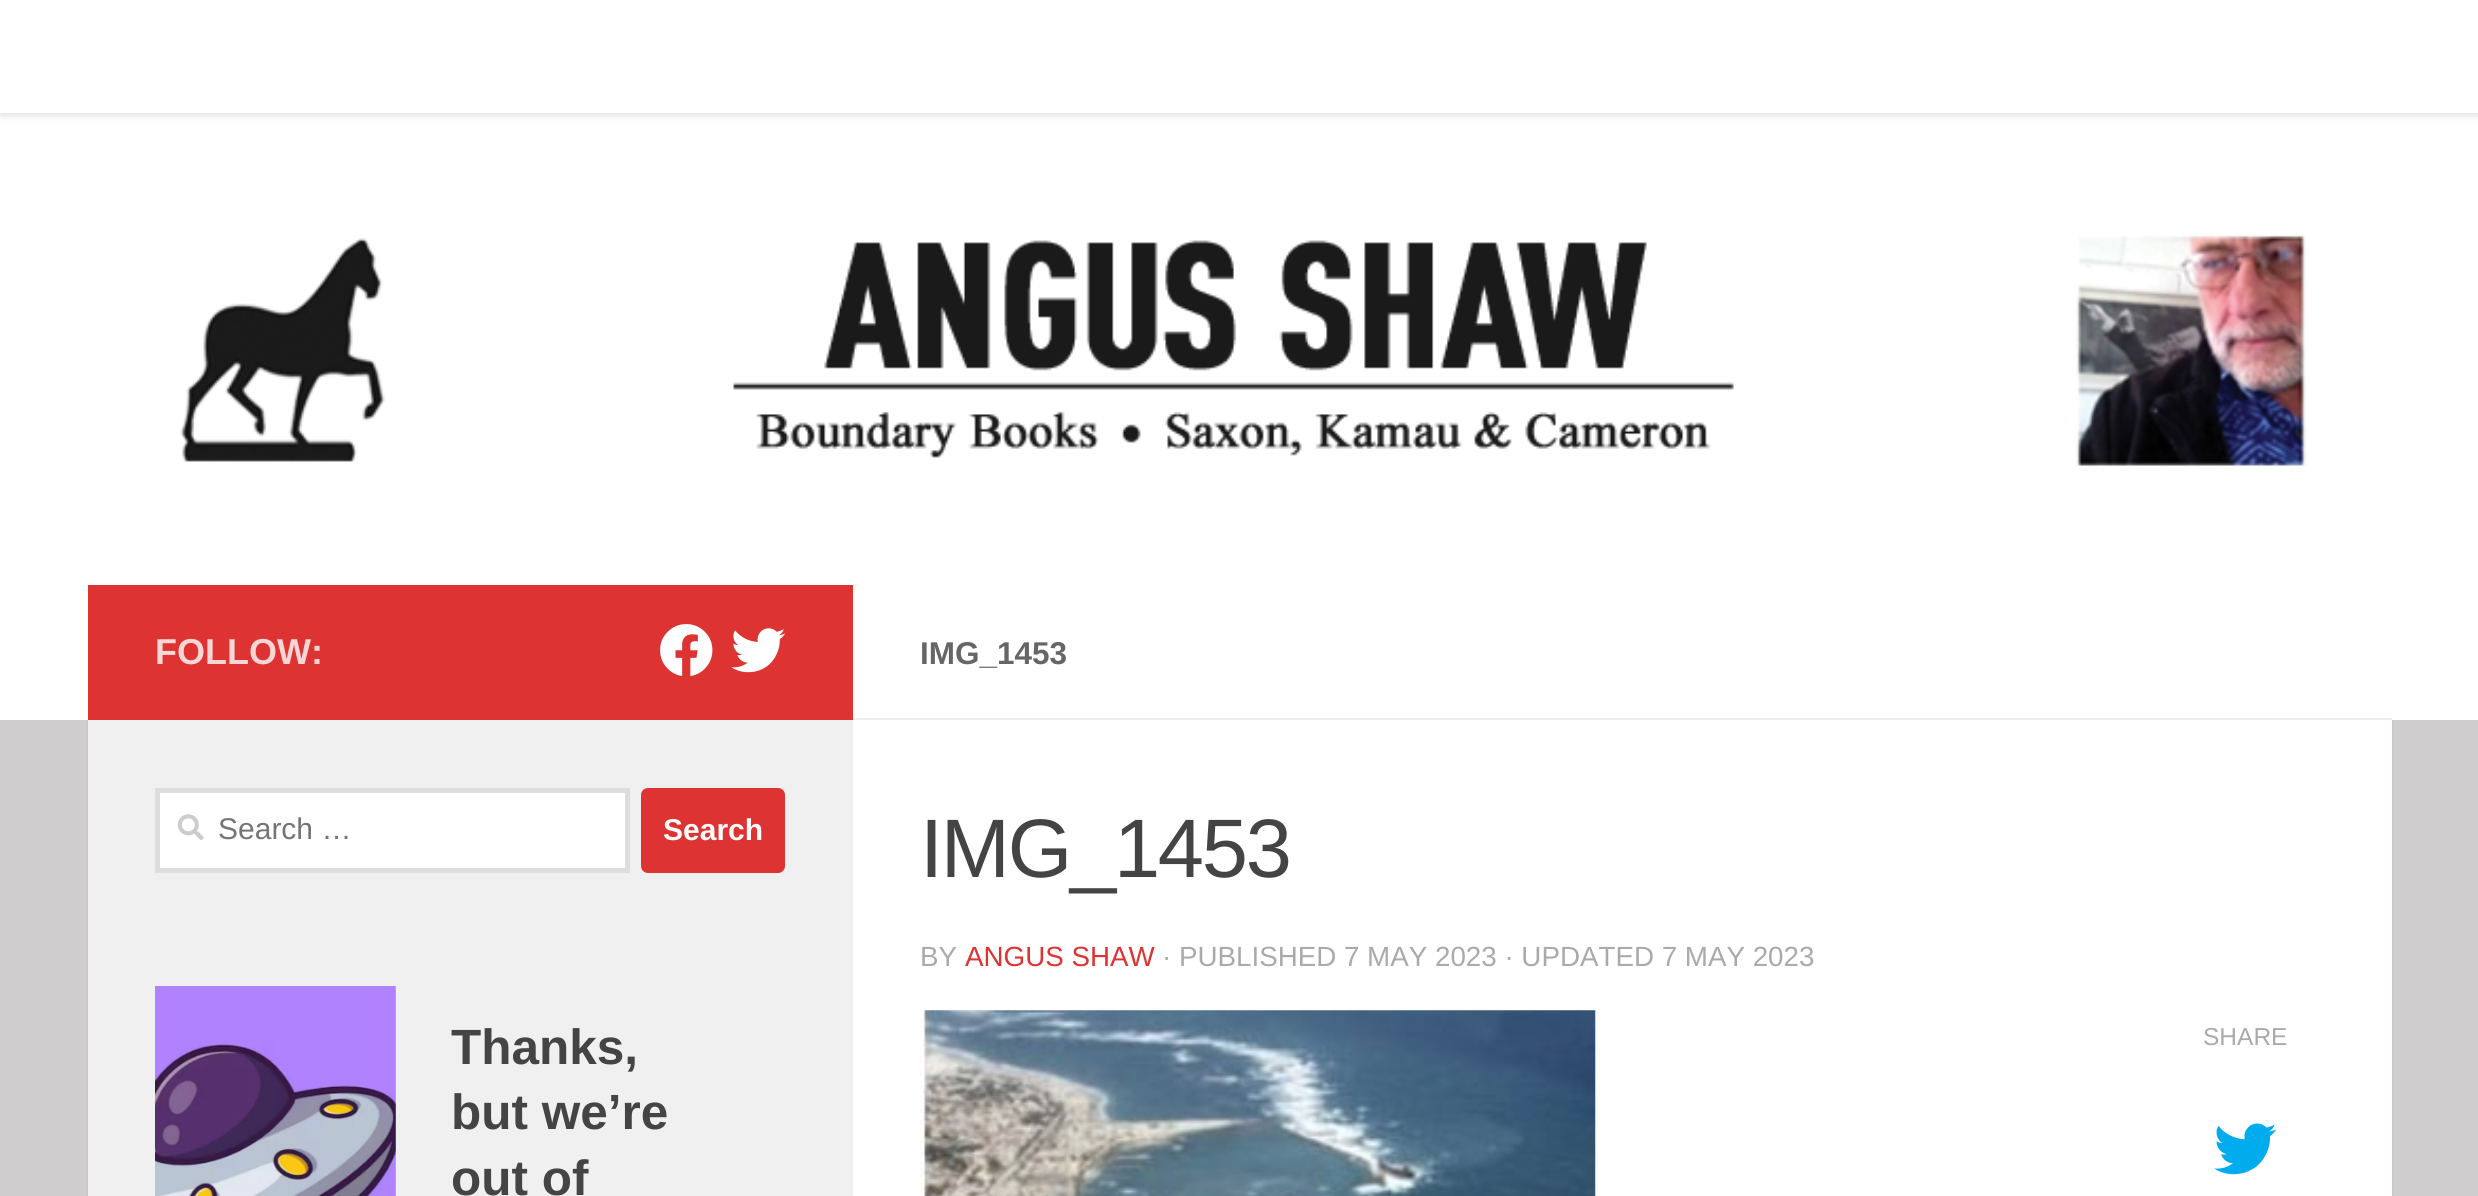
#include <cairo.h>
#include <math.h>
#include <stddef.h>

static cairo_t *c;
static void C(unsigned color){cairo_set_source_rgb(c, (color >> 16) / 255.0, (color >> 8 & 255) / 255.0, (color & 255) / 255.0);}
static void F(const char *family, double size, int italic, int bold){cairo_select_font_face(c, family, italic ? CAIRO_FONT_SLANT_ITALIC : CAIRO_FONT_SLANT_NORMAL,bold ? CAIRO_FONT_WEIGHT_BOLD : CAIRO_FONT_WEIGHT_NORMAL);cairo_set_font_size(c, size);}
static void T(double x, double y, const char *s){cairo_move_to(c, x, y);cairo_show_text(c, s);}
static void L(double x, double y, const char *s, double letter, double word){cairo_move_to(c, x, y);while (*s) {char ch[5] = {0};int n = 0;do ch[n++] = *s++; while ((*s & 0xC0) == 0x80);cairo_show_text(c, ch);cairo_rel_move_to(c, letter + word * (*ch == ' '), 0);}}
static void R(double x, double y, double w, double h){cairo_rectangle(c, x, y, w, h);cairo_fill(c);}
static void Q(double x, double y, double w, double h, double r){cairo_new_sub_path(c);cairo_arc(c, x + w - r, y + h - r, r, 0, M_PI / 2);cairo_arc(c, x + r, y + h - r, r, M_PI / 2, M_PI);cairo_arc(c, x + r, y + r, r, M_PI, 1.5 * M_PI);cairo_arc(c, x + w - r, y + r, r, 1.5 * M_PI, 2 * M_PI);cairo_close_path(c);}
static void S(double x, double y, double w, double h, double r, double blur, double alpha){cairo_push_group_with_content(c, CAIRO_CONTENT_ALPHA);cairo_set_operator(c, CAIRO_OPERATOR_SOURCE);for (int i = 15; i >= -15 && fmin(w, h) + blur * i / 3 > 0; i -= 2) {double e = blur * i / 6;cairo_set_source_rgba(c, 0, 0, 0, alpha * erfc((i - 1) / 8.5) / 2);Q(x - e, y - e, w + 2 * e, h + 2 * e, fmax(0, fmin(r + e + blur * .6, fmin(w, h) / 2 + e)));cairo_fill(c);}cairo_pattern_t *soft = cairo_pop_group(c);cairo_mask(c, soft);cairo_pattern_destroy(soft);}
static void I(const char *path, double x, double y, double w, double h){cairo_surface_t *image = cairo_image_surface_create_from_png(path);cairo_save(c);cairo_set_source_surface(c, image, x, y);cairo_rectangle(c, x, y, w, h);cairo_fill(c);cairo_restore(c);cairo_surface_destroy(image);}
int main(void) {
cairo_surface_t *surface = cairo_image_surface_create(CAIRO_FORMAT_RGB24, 2478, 1196);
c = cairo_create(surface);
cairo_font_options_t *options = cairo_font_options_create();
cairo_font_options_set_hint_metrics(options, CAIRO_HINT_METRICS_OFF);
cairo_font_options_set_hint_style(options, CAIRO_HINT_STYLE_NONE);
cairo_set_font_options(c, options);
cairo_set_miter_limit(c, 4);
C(0xcfcdcd);
cairo_paint(c);
C(0x000000);
S(88,587,2304,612,0,1,.1);
C(0xffffff);
R(0,113,2478,607);
C(0x000000);
S(0,0,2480,113,0,5.5,.2);
C(0xffffff);
R(0,0,2478,113);
I("1.png",180,233,2126,233);
R(853,720,1539,476);
C(0xdd3333);
R(88,585,765,135);
F("Liberation Sans",36,0,1);
C(0xf8d6d6);
T(155,664,"FOLLOW:");
I("2.png",660,624,53,52);
I("3.png",731,628,55,45);
C(0xf0f0f0);
R(88,720,765,476);
C(0xffffff);
cairo_rectangle(c,157.5,790.5,470,80);
cairo_fill_preserve(c);
C(0xdddddd);
cairo_set_line_width(c,5);
cairo_stroke(c);
I("4.png",177,814,27,27);
F("Liberation Sans",30,0,0);
C(0x757575);
T(218,839,"Search …");
C(0xdd3333);
Q(641,788,144,85,7);
cairo_fill(c);
F("Liberation Sans",30,0,1);
C(0xffffff);
T(663,840,"Search");
I("5.png",155,986,241,210);
F("Liberation Sans",49.5,0,1);
C(0x444444);
T(451,1064,"Thanks,");
T(451,1129,"but we’re");
T(451,1195,"out of");
C(0xeeeeee);
R(853,718,1539,2);
F("Liberation Sans",31.5,0,1);
C(0x666666);
T(920,664,"IMG_1453");
F("Liberation Sans",83,0,0);
C(0x444444);
L(920,877,"IMG_1453",-2.25,0);
F("Liberation Sans",27.75,0,0);
C(0xaaaaaa);
T(920,966,"BY");
C(0xdd3333);
T(965,966,"ANGUS SHAW");
C(0xaaaaaa);
T(1162,966,"· PUBLISHED 7 MAY 2023 · UPDATED 7 MAY 2023");
I("6.png",920,1010,676,186);
F("Liberation Sans",24.5,0,0);
T(2203,1045,"SHARE");
I("7.png",2214,1123,63,52);
cairo_surface_write_to_png(surface, "o.png");
cairo_font_options_destroy(options);
cairo_destroy(c);
cairo_surface_destroy(surface);
return 0;
}
